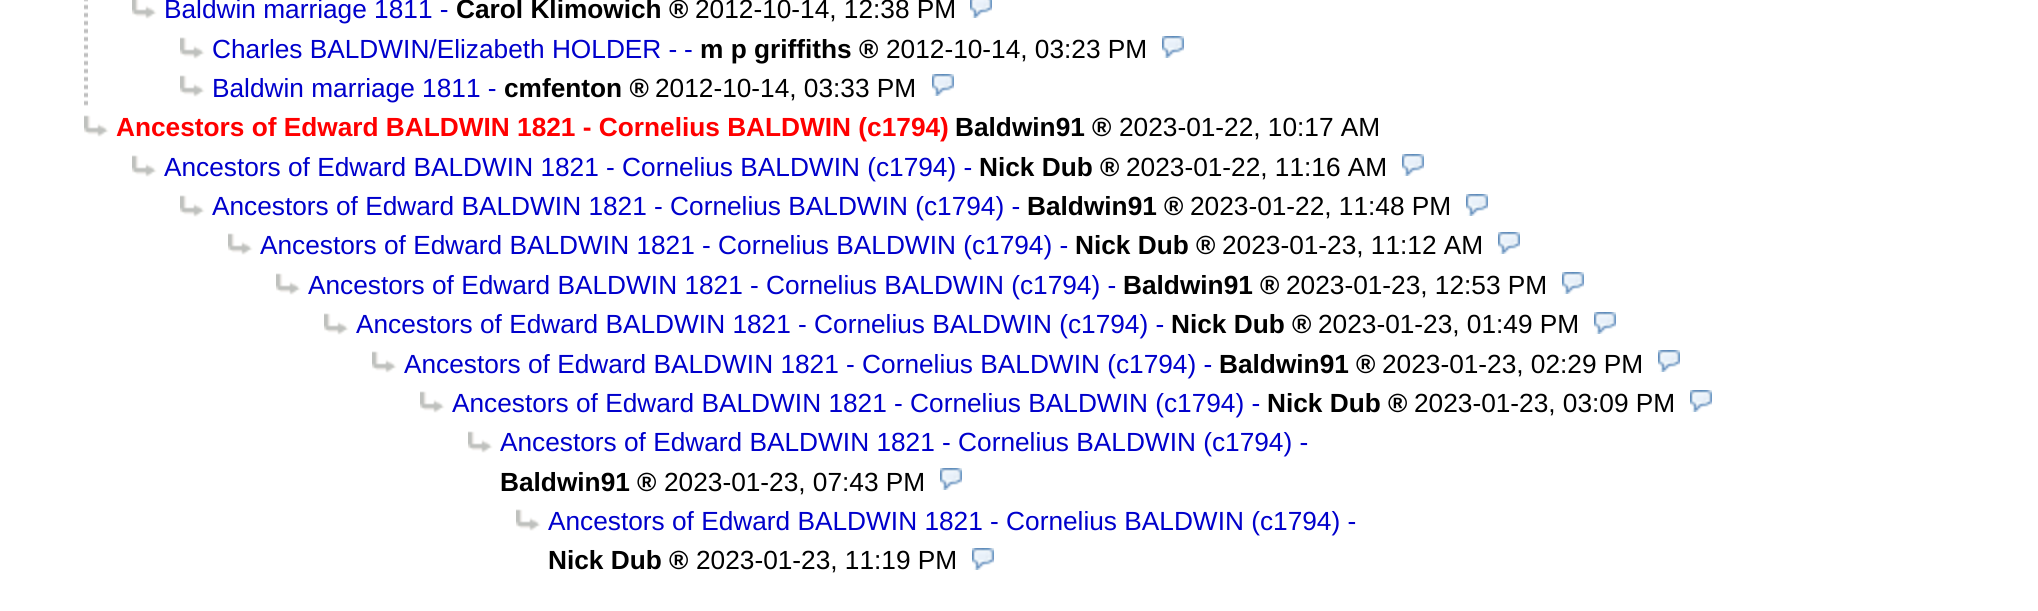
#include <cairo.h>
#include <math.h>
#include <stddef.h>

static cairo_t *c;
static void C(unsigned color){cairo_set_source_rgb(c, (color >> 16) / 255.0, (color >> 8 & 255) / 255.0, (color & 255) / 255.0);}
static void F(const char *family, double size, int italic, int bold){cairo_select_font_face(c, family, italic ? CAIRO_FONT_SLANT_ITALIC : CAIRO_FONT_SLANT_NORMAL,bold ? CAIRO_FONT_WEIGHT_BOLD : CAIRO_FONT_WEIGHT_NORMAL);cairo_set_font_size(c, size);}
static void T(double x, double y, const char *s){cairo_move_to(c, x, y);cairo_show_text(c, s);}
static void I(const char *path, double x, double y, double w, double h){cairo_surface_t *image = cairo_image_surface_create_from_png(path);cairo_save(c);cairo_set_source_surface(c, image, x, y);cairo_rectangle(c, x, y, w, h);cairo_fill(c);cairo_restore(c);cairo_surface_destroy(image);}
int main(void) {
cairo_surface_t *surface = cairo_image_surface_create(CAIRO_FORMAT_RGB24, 2038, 611);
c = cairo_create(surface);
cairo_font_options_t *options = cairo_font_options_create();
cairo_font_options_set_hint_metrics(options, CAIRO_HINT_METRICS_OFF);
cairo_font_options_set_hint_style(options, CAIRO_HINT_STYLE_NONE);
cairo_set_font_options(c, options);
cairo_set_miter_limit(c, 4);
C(0xffffff);
cairo_paint(c);
I("1.png",84,0,4,106);
I("2.png",132,0,25,19);
F("Liberation Sans",26.25,0,0);
C(0x0000cc);
T(164,18,"Baldwin marriage 1811 -");
F("Liberation Sans",26.25,0,1);
C(0x000000);
T(456,18,"Carol Klimowich ®");
F("Liberation Sans",26.25,0,0);
T(695,18,"2012-10-14, 12:38 PM");
I("3.png",970,0,22,18);
I("4.png",180,37,25,22);
C(0x0000cc);
T(212,58,"Charles BALDWIN/Elizabeth HOLDER -");
T(684,58,"-");
F("Liberation Sans",26.25,0,1);
C(0x000000);
T(700,58,"m p griffiths ®");
F("Liberation Sans",26.25,0,0);
T(886,58,"2012-10-14, 03:23 PM");
I("5.png",1162,36,22,22);
I("4.png",180,75,25,22);
C(0x0000cc);
T(212,97,"Baldwin marriage 1811 -");
F("Liberation Sans",26.25,0,1);
C(0x000000);
T(504,97,"cmfenton ®");
F("Liberation Sans",26.25,0,0);
T(655,97,"2012-10-14, 03:33 PM");
I("5.png",932,74,22,22);
I("4.png",84,115,25,22);
F("Liberation Sans",26.25,0,1);
C(0xff0000);
T(116,136,"Ancestors of Edward BALDWIN 1821 - Cornelius BALDWIN (c1794)");
C(0x000000);
T(955,136,"Baldwin91 ®");
F("Liberation Sans",26.25,0,0);
T(1119,136,"2023-01-22, 10:17 AM");
I("4.png",132,155,25,22);
C(0x0000cc);
T(164,176,"Ancestors of Edward BALDWIN 1821 - Cornelius BALDWIN (c1794) -");
F("Liberation Sans",26.25,0,1);
C(0x000000);
T(979,176,"Nick Dub ®");
F("Liberation Sans",26.25,0,0);
T(1126,176,"2023-01-22, 11:16 AM");
I("5.png",1402,154,22,22);
I("4.png",180,195,25,22);
C(0x0000cc);
T(212,215,"Ancestors of Edward BALDWIN 1821 - Cornelius BALDWIN (c1794) -");
F("Liberation Sans",26.25,0,1);
C(0x000000);
T(1027,215,"Baldwin91 ®");
F("Liberation Sans",26.25,0,0);
T(1190,215,"2023-01-22, 11:48 PM");
I("5.png",1466,194,22,22);
I("4.png",228,233,25,22);
C(0x0000cc);
T(260,254,"Ancestors of Edward BALDWIN 1821 - Cornelius BALDWIN (c1794) -");
F("Liberation Sans",26.25,0,1);
C(0x000000);
T(1075,254,"Nick Dub ®");
F("Liberation Sans",26.25,0,0);
T(1222,254,"2023-01-23, 11:12 AM");
I("5.png",1498,232,22,22);
I("4.png",276,273,25,22);
C(0x0000cc);
T(308,294,"Ancestors of Edward BALDWIN 1821 - Cornelius BALDWIN (c1794) -");
F("Liberation Sans",26.25,0,1);
C(0x000000);
T(1123,294,"Baldwin91 ®");
F("Liberation Sans",26.25,0,0);
T(1286,294,"2023-01-23, 12:53 PM");
I("5.png",1562,272,22,22);
I("4.png",324,313,25,22);
C(0x0000cc);
T(356,333,"Ancestors of Edward BALDWIN 1821 - Cornelius BALDWIN (c1794) -");
F("Liberation Sans",26.25,0,1);
C(0x000000);
T(1171,333,"Nick Dub ®");
F("Liberation Sans",26.25,0,0);
T(1318,333,"2023-01-23, 01:49 PM");
I("5.png",1594,312,22,22);
I("4.png",372,351,25,22);
C(0x0000cc);
T(404,373,"Ancestors of Edward BALDWIN 1821 - Cornelius BALDWIN (c1794) -");
F("Liberation Sans",26.25,0,1);
C(0x000000);
T(1219,373,"Baldwin91 ®");
F("Liberation Sans",26.25,0,0);
T(1382,373,"2023-01-23, 02:29 PM");
I("5.png",1658,350,22,22);
I("4.png",420,391,25,22);
C(0x0000cc);
T(452,412,"Ancestors of Edward BALDWIN 1821 - Cornelius BALDWIN (c1794) -");
F("Liberation Sans",26.25,0,1);
C(0x000000);
T(1267,412,"Nick Dub ®");
F("Liberation Sans",26.25,0,0);
T(1414,412,"2023-01-23, 03:09 PM");
I("5.png",1690,390,22,22);
I("4.png",468,431,25,22);
C(0x0000cc);
T(500,451,"Ancestors of Edward BALDWIN 1821 - Cornelius BALDWIN (c1794) -");
F("Liberation Sans",26.25,0,1);
C(0x000000);
T(500,491,"Baldwin91 ®");
F("Liberation Sans",26.25,0,0);
T(664,491,"2023-01-23, 07:43 PM");
I("5.png",940,468,22,22);
I("4.png",516,509,25,22);
C(0x0000cc);
T(548,530,"Ancestors of Edward BALDWIN 1821 - Cornelius BALDWIN (c1794) -");
F("Liberation Sans",26.25,0,1);
C(0x000000);
T(548,569,"Nick Dub ®");
F("Liberation Sans",26.25,0,0);
T(696,569,"2023-01-23, 11:19 PM");
I("5.png",972,548,22,22);
cairo_surface_write_to_png(surface, "o.png");
cairo_font_options_destroy(options);
cairo_destroy(c);
cairo_surface_destroy(surface);
return 0;
}
